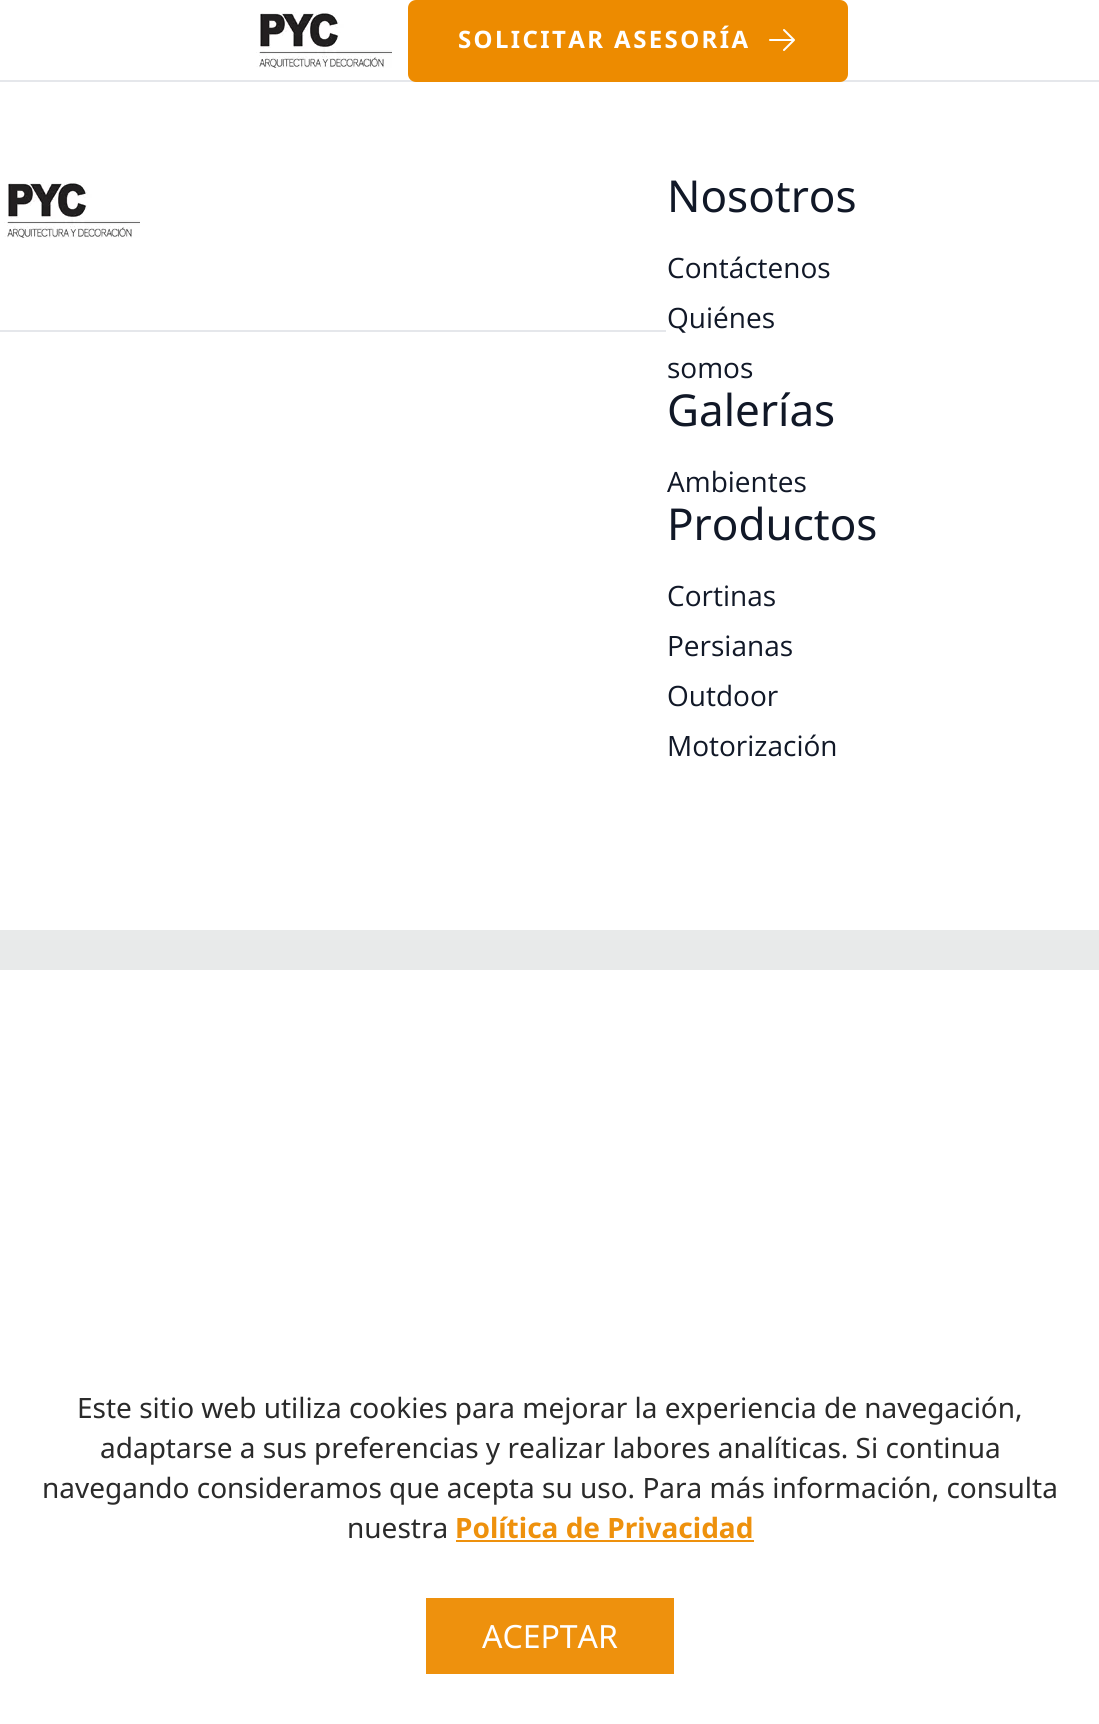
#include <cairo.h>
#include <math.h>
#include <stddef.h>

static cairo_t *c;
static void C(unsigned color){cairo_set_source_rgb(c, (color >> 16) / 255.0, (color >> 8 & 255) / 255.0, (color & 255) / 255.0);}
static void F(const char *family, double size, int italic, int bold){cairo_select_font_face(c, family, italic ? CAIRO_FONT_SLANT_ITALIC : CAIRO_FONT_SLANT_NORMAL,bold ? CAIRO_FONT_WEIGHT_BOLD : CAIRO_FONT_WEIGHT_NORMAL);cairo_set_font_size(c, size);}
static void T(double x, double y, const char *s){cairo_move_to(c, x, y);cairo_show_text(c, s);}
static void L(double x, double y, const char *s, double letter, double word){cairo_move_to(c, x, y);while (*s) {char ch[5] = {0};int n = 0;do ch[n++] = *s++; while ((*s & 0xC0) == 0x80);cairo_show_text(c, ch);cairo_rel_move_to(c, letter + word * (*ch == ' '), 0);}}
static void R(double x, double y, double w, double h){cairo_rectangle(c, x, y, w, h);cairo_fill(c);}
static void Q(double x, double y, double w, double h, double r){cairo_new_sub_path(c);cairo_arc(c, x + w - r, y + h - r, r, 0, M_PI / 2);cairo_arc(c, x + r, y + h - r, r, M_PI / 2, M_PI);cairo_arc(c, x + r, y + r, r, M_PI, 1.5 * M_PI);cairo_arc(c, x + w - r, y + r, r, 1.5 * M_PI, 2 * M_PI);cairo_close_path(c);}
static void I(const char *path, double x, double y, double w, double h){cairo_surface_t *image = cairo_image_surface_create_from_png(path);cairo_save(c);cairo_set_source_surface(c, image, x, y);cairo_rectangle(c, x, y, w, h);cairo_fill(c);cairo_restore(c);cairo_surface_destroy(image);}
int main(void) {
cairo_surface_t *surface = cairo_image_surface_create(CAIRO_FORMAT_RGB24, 1099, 1724);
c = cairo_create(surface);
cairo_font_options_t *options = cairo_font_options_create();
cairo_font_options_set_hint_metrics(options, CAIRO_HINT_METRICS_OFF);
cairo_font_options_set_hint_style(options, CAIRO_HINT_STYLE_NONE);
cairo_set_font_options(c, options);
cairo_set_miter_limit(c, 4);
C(0xffffff);
cairo_paint(c);
C(0xe5e7eb);
R(0,80,1099,2);
I("1.png",256,12,136,56);
C(0xed8b00);
Q(408,0,440,82,8);
cairo_fill(c);
F("Noto Sans",24,0,1);
C(0xffffff);
L(458,48,"SOLICITAR ASESORÍA",2.4,0);
I("2.png",769,29,26,22);
C(0xe8eaea);
R(0,930,1099,40);
I("1.png",4,182,136,56);
C(0xe5e7eb);
R(0,330,666,2);
F("Noto Sans",44,0,0);
C(0x111827);
T(667,212,"Nosotros");
F("Open Sans",28,0,0);
T(667,278,"Contáctenos");
T(667,328,"Quiénes");
T(667,378,"somos");
F("Noto Sans",44,0,0);
T(667,426,"Galerías");
F("Open Sans",28,0,0);
T(667,492,"Ambientes");
F("Noto Sans",44,0,0);
T(667,540,"Productos");
F("Open Sans",28,0,0);
T(667,606,"Cortinas");
T(667,656,"Persianas");
T(667,706,"Outdoor");
T(667,756,"Motorización");
F("Noto Sans",28,0,0);
C(0x2a2a2a);
T(77,1418,"Este sitio web utiliza cookies para mejorar la experiencia de navegación,");
T(100,1458,"adaptarse a sus preferencias y realizar labores analíticas. Si continua");
T(42,1498,"navegando consideramos que acepta su uso. Para más información, consulta");
T(347,1538,"nuestra");
F("Noto Sans",28,0,1);
C(0xee910d);
T(455,1538,"Política de Privacidad");
R(456,1540,298,2);
R(426,1598,248,76);
F("Noto Sans",32,0,0);
C(0xffffff);
T(482,1648,"ACEPTAR");
cairo_surface_write_to_png(surface, "o.png");
cairo_font_options_destroy(options);
cairo_destroy(c);
cairo_surface_destroy(surface);
return 0;
}
